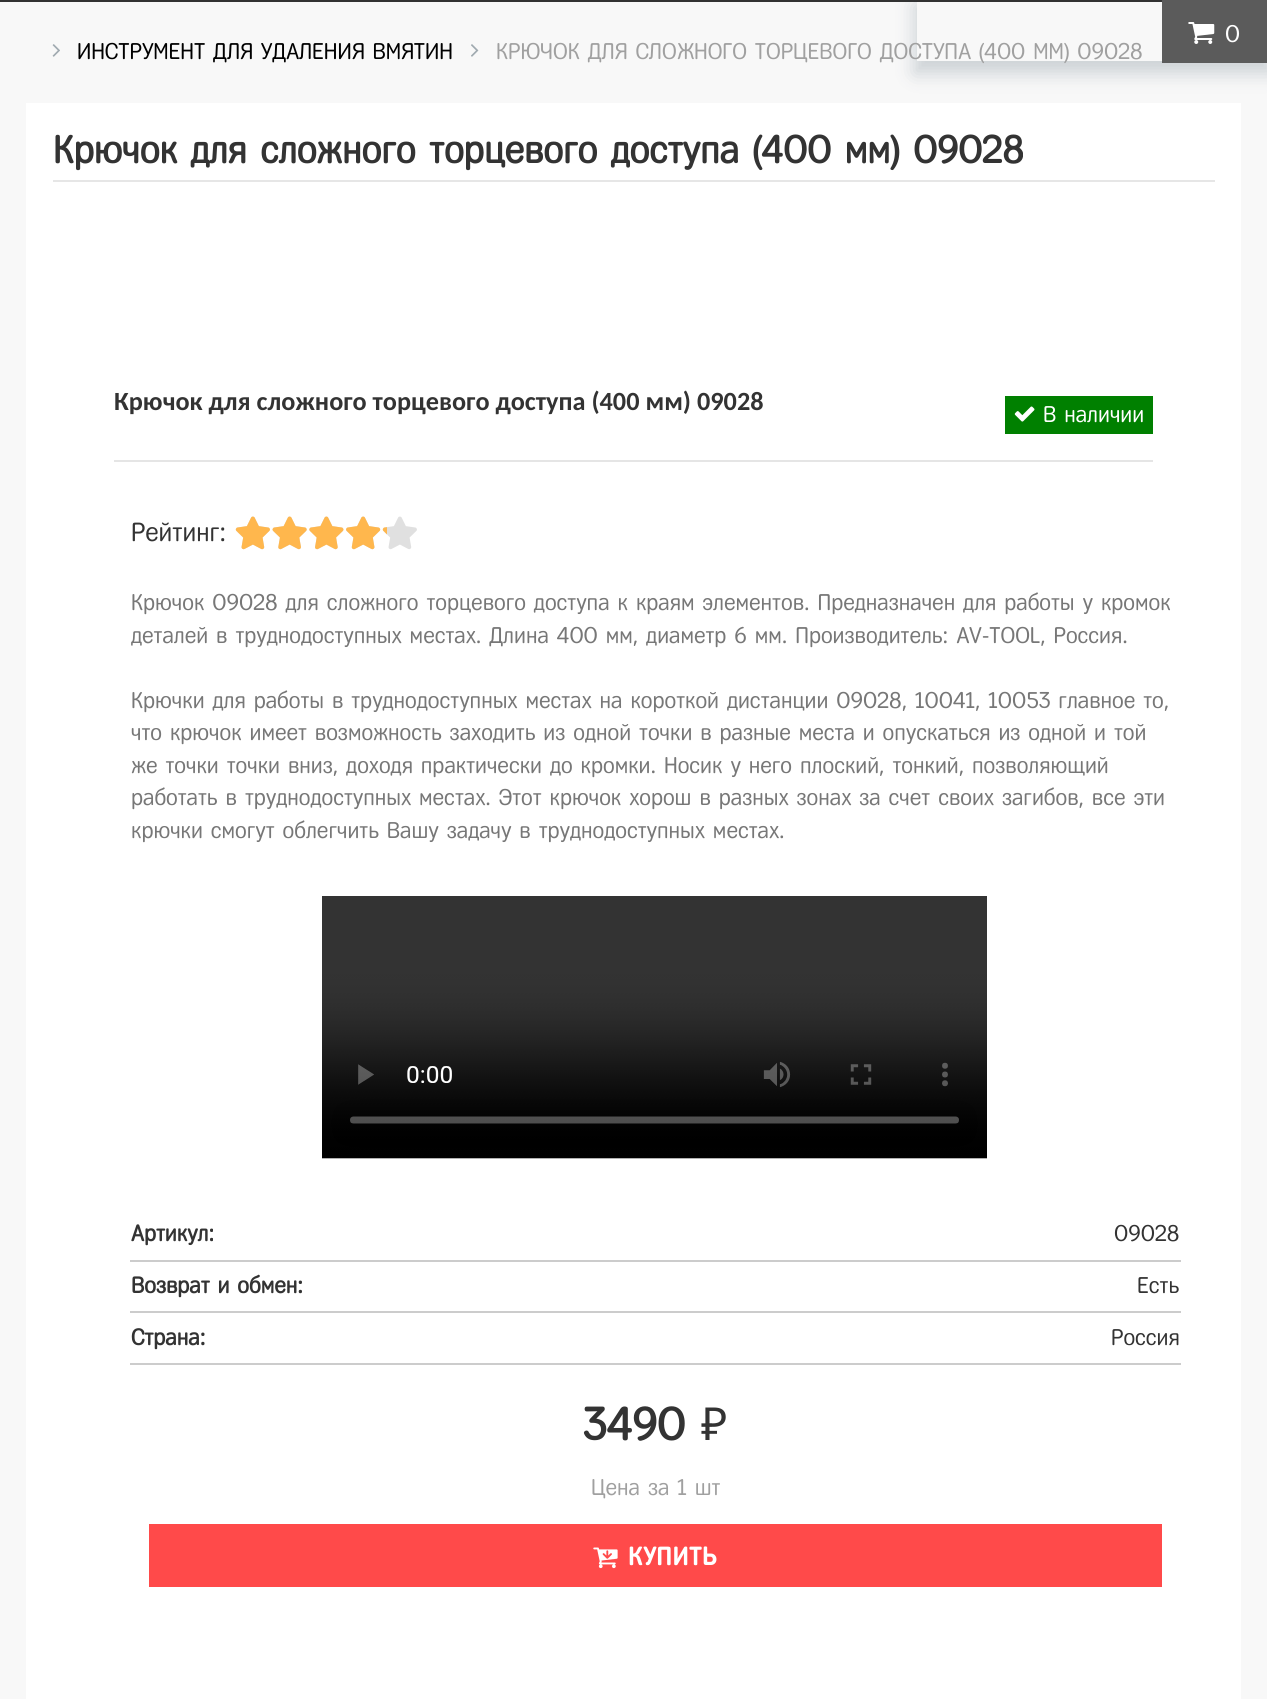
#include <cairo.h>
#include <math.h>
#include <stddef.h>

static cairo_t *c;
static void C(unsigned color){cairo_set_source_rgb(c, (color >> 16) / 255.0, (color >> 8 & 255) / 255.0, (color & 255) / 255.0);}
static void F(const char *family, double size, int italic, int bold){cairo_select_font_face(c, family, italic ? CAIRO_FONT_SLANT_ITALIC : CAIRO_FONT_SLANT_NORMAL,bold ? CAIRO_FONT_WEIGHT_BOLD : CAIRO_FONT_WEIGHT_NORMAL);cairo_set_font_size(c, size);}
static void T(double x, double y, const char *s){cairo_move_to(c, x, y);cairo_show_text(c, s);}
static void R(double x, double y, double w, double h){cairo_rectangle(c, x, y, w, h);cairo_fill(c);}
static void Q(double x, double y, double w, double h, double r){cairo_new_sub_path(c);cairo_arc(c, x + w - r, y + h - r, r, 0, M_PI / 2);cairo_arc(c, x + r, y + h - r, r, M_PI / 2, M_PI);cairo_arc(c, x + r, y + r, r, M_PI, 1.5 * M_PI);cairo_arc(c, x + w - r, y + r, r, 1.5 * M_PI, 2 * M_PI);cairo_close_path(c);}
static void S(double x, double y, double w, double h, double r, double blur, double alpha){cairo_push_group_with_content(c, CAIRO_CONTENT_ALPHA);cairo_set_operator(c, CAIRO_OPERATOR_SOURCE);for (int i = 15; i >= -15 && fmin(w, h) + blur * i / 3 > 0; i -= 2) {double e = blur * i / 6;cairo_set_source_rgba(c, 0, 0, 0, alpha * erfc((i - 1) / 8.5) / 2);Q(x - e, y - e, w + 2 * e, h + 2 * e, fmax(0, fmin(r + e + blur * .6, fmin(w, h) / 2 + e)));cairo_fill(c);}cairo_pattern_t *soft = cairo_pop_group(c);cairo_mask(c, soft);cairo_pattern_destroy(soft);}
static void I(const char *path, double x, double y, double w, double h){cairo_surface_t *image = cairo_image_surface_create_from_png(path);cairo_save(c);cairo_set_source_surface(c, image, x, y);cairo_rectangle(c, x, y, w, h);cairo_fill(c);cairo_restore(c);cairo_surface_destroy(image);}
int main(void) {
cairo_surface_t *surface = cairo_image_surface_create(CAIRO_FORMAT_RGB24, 1267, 1699);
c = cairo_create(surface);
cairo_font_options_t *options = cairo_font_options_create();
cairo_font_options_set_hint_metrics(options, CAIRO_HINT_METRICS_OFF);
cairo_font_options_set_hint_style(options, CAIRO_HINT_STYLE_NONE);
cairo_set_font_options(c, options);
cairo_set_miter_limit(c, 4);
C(0xf8f8f8);
cairo_paint(c);
C(0x323232);
R(0,0,1162,2);
cairo_save(c);
cairo_set_fill_rule(c,CAIRO_FILL_RULE_EVEN_ODD);
cairo_new_path(c);
cairo_move_to(c,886,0);
cairo_line_to(c,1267,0);
cairo_line_to(c,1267,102);
cairo_line_to(c,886,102);
cairo_close_path(c);
cairo_move_to(c,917,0);
cairo_line_to(c,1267,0);
cairo_line_to(c,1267,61);
cairo_line_to(c,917,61);
cairo_close_path(c);
cairo_clip(c);
C(0x223c50);
S(914,5,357,69,0,9,.2);
cairo_restore(c);
C(0x5b5b5b);
R(1162,0,105,63);
I("1.png",1188,22,27,22);
F("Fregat",24,0,0);
C(0xffffff);
T(1225,42,"0");
I("2.png",52,44,8,13);
F("Fregat",22.75,0,0);
C(0x000000);
T(77,59,"ИНСТРУМЕНТ ДЛЯ УДАЛЕНИЯ ВМЯТИН");
I("3.png",471,44,8,13);
C(0xa0a0a0);
T(496,59,"КРЮЧОК ДЛЯ СЛОЖНОГО ТОРЦЕВОГО ДОСТУПА (400 ММ) 09028");
C(0xffffff);
R(26,103,1215,1596);
C(0xe6e6e6);
R(53,180,1162,2);
F("Fregat",38.5,0,1);
C(0x333333);
T(53,163,"Крючок для сложного торцевого доступа (400 мм) 09028");
C(0xe5e5e5);
R(114,460,1039,2);
F("Carlito",26.25,0,1);
C(0x333333);
T(114,410,"Крючок для сложного торцевого доступа (400 мм) 09028");
C(0x008000);
R(1005,396,148,38);
I("4.png",1014,406,21,16);
F("Fregat",22.75,0,0);
C(0xffffff);
T(1043,422,"В наличии");
F("Fregat",26.25,0,0);
C(0x333333);
T(131,541,"Рейтинг:");
I("5.png",235,516,35,34);
I("6.png",272,516,35,34);
I("7.png",309,516,35,34);
I("8.png",346,516,35,34);
I("5.png",382,516,35,34);
I("9.png",235,516,35,34);
I("10.png",272,516,35,34);
I("11.png",309,516,35,34);
I("12.png",346,516,35,34);
I("13.png",382,527,5,8);
F("Fregat",22.75,0,0);
C(0x777777);
T(131,610,"Крючок 09028 для сложного торцевого доступа к краям элементов. Предназначен для работы у кромок");
T(131,643,"деталей в труднодоступных местах. Длина 400 мм, диаметр 6 мм. Производитель: АV-TOOL, Россия.");
T(131,708,"Крючки для работы в труднодоступных местах на короткой дистанции 09028, 10041, 10053 главное то,");
T(131,740,"что крючок имеет возможность заходить из одной точки в разные места и опускаться из одной и той");
T(131,773,"же точки точки вниз, доходя практически до кромки. Носик у него плоский, тонкий, позволяющий");
T(131,805,"работать в труднодоступных местах. Этот крючок хорош в разных зонах за счет своих загибов, все эти");
T(131,838,"крючки смогут облегчить Вашу задачу в труднодоступных местах.");
I("14.png",322,896,665,263);
F("Fregat",22.75,0,1);
C(0x333333);
T(131,1241,"Артикул:");
C(0xcccccc);
R(130,1260,1051,2);
F("Fregat",22.75,0,0);
C(0x333333);
T(1114,1241,"09028");
F("Fregat",22.75,0,1);
T(131,1293,"Возврат и обмен:");
C(0xcccccc);
R(130,1311,1051,2);
F("Fregat",22.75,0,0);
C(0x333333);
T(1137,1293,"Есть");
F("Fregat",22.75,0,1);
T(131,1345,"Страна:");
C(0xcccccc);
R(130,1363,1051,2);
F("Fregat",22.75,0,0);
C(0x333333);
T(1111,1345,"Россия");
F("Fregat",45.5,0,1);
T(583,1440,"3490");
F("Noto Sans",45.5,0,0);
T(701,1440,"₽");
F("Fregat",22.75,0,0);
C(0xa0a0a0);
T(591,1495,"Цена за 1 шт");
C(0xff4a4a);
R(149,1524,1013,63);
I("15.png",593,1547,25,22);
F("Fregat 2",26.25,0,1);
C(0xffffff);
T(628,1565,"КУПИТЬ");
cairo_surface_write_to_png(surface, "o.png");
cairo_font_options_destroy(options);
cairo_destroy(c);
cairo_surface_destroy(surface);
return 0;
}
